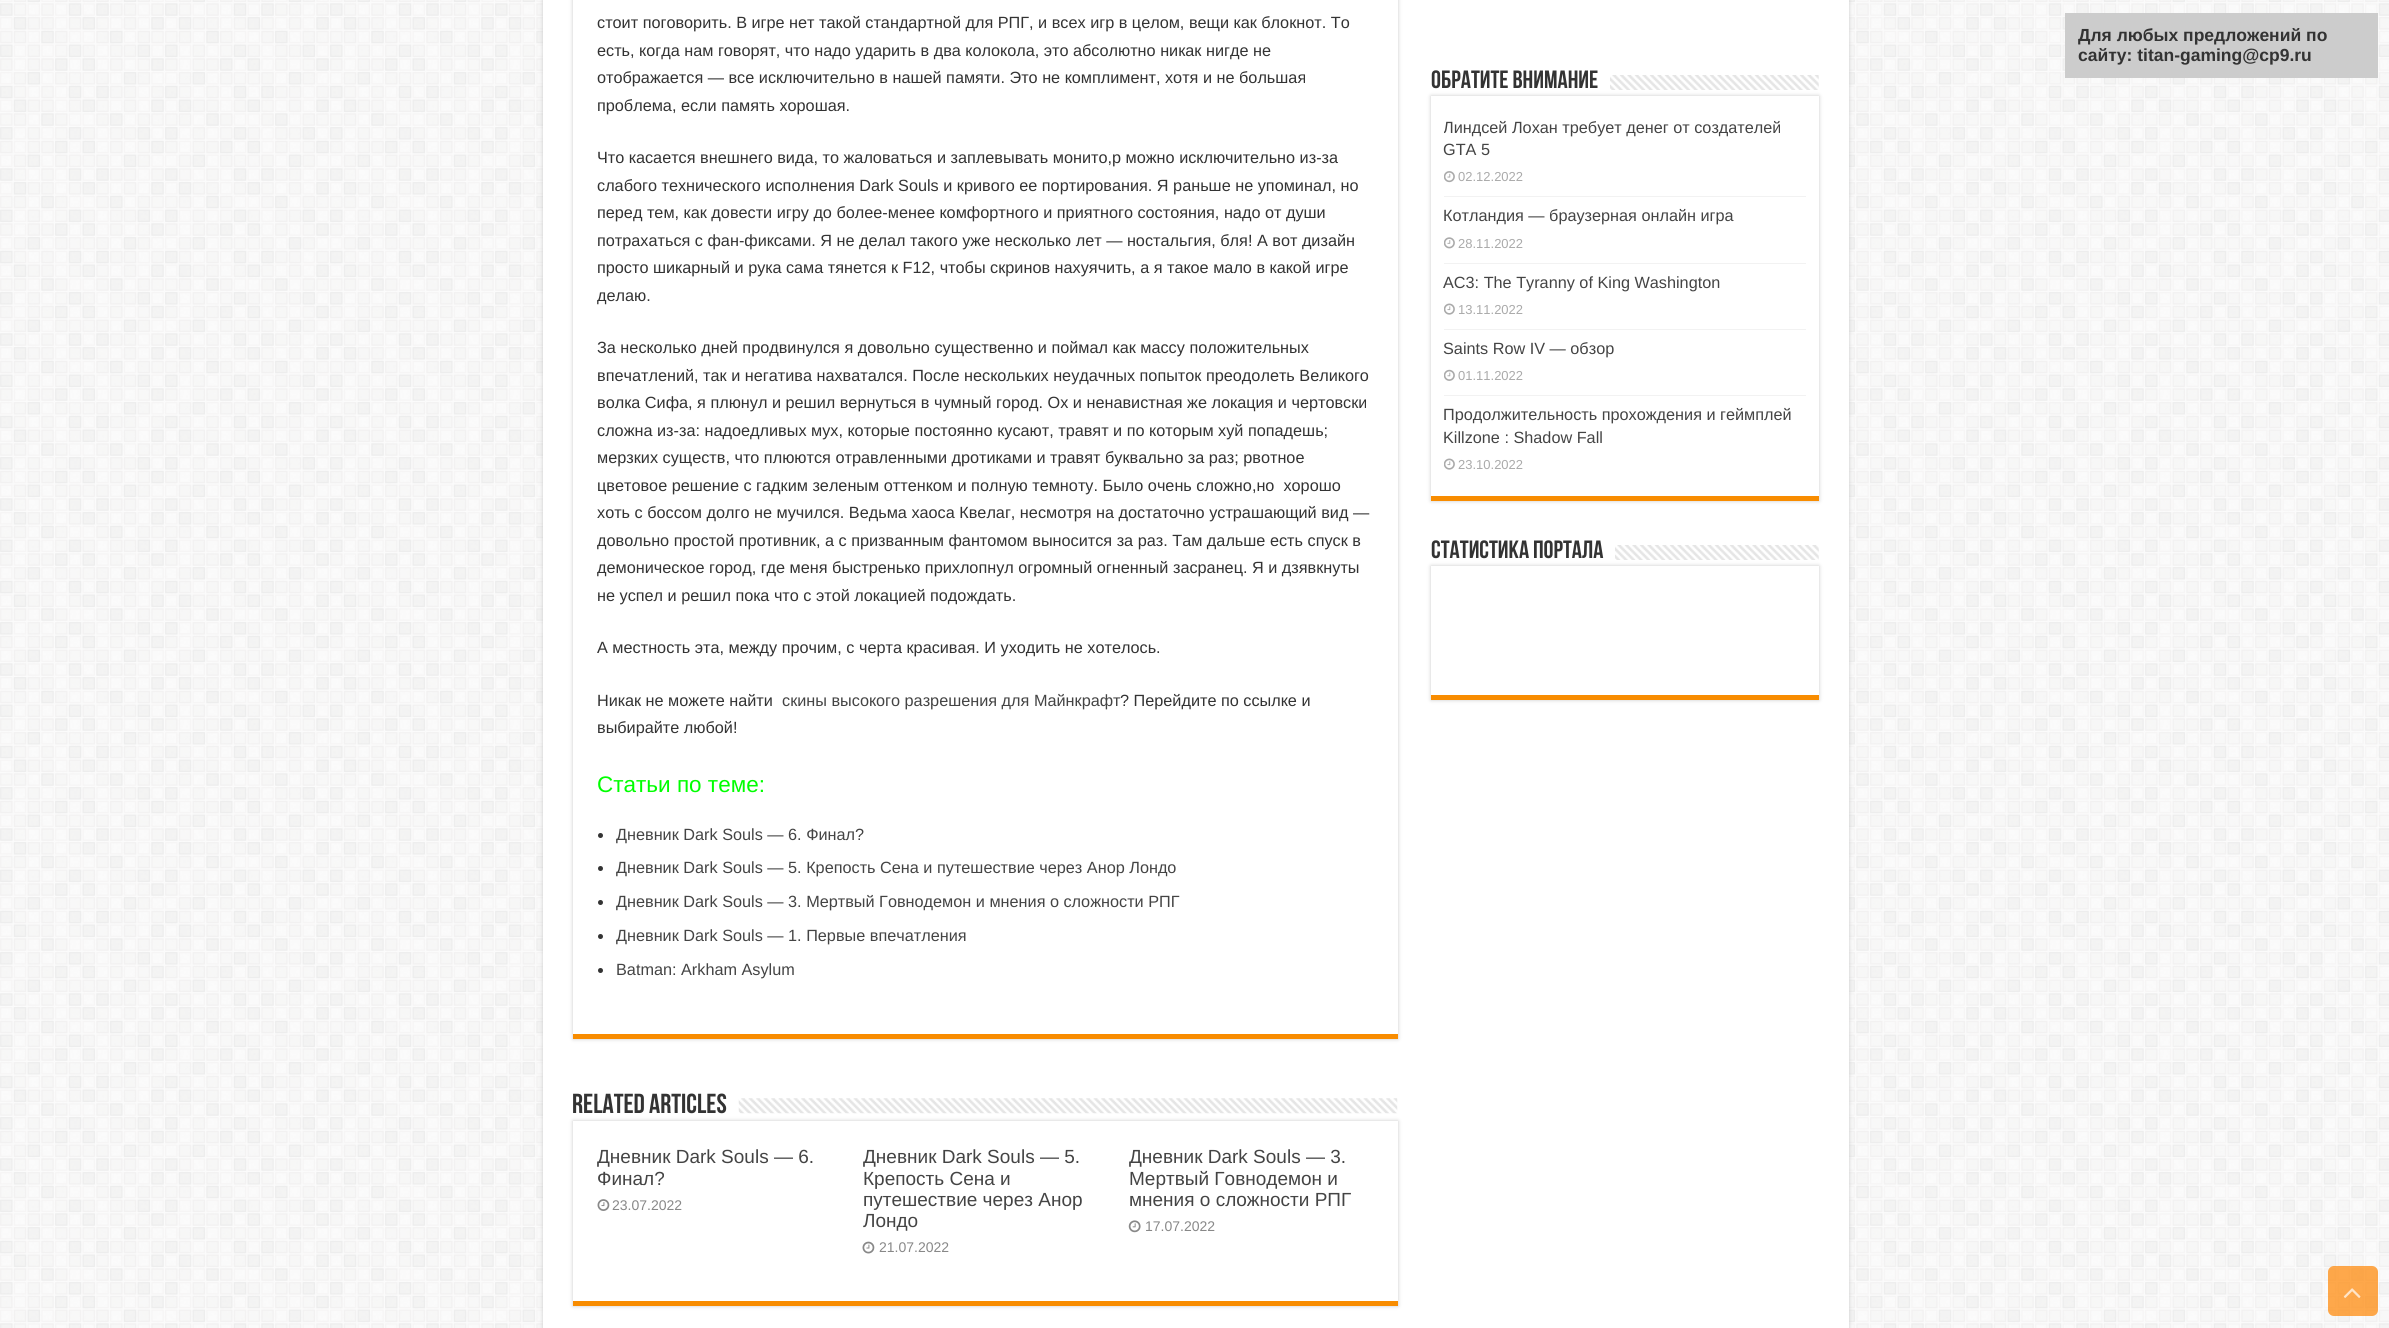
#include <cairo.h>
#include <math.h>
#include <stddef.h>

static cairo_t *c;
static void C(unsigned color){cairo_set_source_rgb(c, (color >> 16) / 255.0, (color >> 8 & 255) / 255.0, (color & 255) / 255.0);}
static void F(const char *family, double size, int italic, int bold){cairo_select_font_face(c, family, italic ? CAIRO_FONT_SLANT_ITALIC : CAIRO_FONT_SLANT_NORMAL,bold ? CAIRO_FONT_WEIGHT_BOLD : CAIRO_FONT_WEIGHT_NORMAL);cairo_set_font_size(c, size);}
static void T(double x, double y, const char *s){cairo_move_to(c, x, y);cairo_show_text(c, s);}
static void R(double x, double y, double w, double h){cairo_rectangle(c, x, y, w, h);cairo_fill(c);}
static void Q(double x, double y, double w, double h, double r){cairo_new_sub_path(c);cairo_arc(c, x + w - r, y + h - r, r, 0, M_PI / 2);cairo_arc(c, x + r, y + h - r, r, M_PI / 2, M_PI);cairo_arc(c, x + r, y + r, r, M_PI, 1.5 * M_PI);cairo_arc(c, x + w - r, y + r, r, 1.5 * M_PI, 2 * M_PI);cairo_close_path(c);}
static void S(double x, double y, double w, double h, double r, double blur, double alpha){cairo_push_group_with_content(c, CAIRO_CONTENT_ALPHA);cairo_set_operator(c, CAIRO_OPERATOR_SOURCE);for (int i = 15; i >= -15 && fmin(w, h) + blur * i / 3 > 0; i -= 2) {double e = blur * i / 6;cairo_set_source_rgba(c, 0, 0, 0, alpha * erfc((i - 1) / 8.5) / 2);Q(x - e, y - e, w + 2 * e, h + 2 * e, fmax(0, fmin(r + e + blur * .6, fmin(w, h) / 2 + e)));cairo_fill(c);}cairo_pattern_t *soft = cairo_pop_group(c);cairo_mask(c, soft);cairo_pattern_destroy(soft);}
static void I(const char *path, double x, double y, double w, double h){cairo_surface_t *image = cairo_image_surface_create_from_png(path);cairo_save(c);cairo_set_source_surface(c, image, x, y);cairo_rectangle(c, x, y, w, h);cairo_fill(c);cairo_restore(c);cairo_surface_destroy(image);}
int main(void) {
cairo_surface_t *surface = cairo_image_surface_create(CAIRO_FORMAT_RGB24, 2389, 1328);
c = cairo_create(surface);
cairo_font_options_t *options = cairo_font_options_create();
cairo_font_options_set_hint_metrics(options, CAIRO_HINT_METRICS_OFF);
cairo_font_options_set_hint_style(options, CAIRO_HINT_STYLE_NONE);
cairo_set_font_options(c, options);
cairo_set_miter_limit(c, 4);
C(0xffffff);
cairo_paint(c);
I("1.png",0,0,2389,1328);
C(0xcacaca);
S(543,-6,1306,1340,0,2,1);
C(0xffffff);
R(543,0,1306,1328);
C(0xcacaca);
S(573,-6,825,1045,0,2,1);
C(0xffffff);
R(573,0,825,1034);
C(0xf88c00);
R(573,1034,825,5);
F("Liberation Sans",16.25,0,0);
C(0x333333);
T(597,28,"стоит поговорить. В игре нет такой стандартной для РПГ, и всех игр в целом, вещи как блокнот. То");
T(597,56,"есть, когда нам говорят, что надо ударить в два колокола, это абсолютно никак нигде не");
T(597,83,"отображается — все исключительно в нашей памяти. Это не комплимент, хотя и не большая");
T(597,111,"проблема, если память хорошая.");
T(597,163,"Что касается внешнего вида, то жаловаться и заплевывать монито,р можно исключительно из-за");
T(597,191,"слабого технического исполнения Dark Souls и кривого ее портирования. Я раньше не упоминал, но");
T(597,218,"перед тем, как довести игру до более-менее комфортного и приятного состояния, надо от души");
T(597,246,"потрахаться с фан-фиксами. Я не делал такого уже несколько лет — ностальгия, бля! А вот дизайн");
T(597,273,"просто шикарный и рука сама тянется к F12, чтобы скринов нахуячить, а я такое мало в какой игре");
T(597,301,"делаю.");
T(597,353,"За несколько дней продвинулся я довольно существенно и поймал как массу положительных");
T(597,381,"впечатлений, так и негатива нахватался. После нескольких неудачных попыток преодолеть Великого");
T(597,408,"волка Сифа, я плюнул и решил вернуться в чумный город. Ох и ненавистная же локация и чертовски");
T(597,436,"сложна из-за: надоедливых мух, которые постоянно кусают, травят и по которым хуй попадешь;");
T(597,463,"мерзких существ, что плюются отравленными дротиками и травят буквально за раз; рвотное");
T(597,491,"цветовое решение с гадким зеленым оттенком и полную темноту. Было очень сложно,но  хорошо");
T(597,518,"хоть с боссом долго не мучился. Ведьма хаоса Квелаг, несмотря на достаточно устрашающий вид —");
T(597,546,"довольно простой противник, а с призванным фантомом выносится за раз. Там дальше есть спуск в");
T(597,573,"демоническое город, где меня быстренько прихлопнул огромный огненный засранец. Я и дзявкнуты");
T(597,601,"не успел и решил пока что с этой локацией подождать.");
T(597,653,"А местность эта, между прочим, с черта красивая. И уходить не хотелось.");
T(597,706,"Никак не можете найти");
C(0x444444);
T(782,706,"скины высокого разрешения для Майнкрафт");
C(0x333333);
T(1120,706,"? Перейдите по ссылке и");
T(597,733,"выбирайте любой!");
F("Liberation Sans",22.5,0,0);
C(0x00ff00);
T(597,792,"Статьи по теме:");
C(0x333333);
cairo_new_path(c);
cairo_arc(c,600.5,835.5,2.5,0,2 * M_PI);
cairo_fill(c);
F("Liberation Sans",16.25,0,0);
C(0x444444);
T(616,840,"Дневник Dark Souls — 6. Финал?");
C(0x333333);
cairo_new_path(c);
cairo_arc(c,600.5,868.5,2.5,0,2 * M_PI);
cairo_fill(c);
C(0x444444);
T(616,873,"Дневник Dark Souls — 5. Крепость Сена и путешествие через Анор Лондо");
C(0x333333);
cairo_new_path(c);
cairo_arc(c,600.5,902.5,2.5,0,2 * M_PI);
cairo_fill(c);
C(0x444444);
T(616,907,"Дневник Dark Souls — 3. Мертвый Говнодемон и мнения о сложности РПГ");
C(0x333333);
cairo_new_path(c);
cairo_arc(c,600.5,936.5,2.5,0,2 * M_PI);
cairo_fill(c);
C(0x444444);
T(616,941,"Дневник Dark Souls — 1. Первые впечатления");
C(0x333333);
cairo_new_path(c);
cairo_arc(c,600.5,970.5,2.5,0,2 * M_PI);
cairo_fill(c);
C(0x444444);
T(616,975,"Batman: Arkham Asylum");
F("Bebas Neue",27.5,0,1);
C(0x333333);
T(572,1113,"Related Articles");
I("2.png",738,1098,660,16);
C(0xcacaca);
S(573,1121,825,185,0,2,1);
C(0xffffff);
R(573,1121,825,180);
C(0xf88c00);
R(573,1301,825,5);
F("Liberation Sans",19,0,0);
C(0x444444);
T(597,1163,"Дневник Dark Souls — 6.");
T(597,1185,"Финал?");
I("3.png",597,1199,13,12);
F("Liberation Sans",14,0,0);
C(0x888888);
T(612,1210,"23.07.2022");
F("Liberation Sans",19,0,0);
C(0x444444);
T(863,1163,"Дневник Dark Souls — 5.");
T(863,1185,"Крепость Сена и");
T(863,1206,"путешествие через Анор");
T(863,1227,"Лондо");
I("4.png",862,1241,13,13);
F("Liberation Sans",14,0,0);
C(0x888888);
T(879,1252,"21.07.2022");
F("Liberation Sans",19,0,0);
C(0x444444);
T(1129,1163,"Дневник Dark Souls — 3.");
T(1129,1185,"Мертвый Говнодемон и");
T(1129,1206,"мнения о сложности РПГ");
I("5.png",1128,1220,13,13);
F("Liberation Sans",14,0,0);
C(0x888888);
T(1145,1231,"17.07.2022");
F("Bebas Neue",25,0,1);
C(0x333333);
T(1431,88,"Обратите внимание");
C(0xcacaca);
S(1431,96,388,405,0,2,1);
I("6.png",1610,75,209,15);
C(0xffffff);
R(1431,96,388,400);
C(0xf88c00);
R(1431,496,388,5);
C(0xf2f2f2);
R(1444,196,362,1);
cairo_save(c);
cairo_rectangle(c,1444,109,362,87);
cairo_clip(c);
F("Liberation Sans",16.25,0,0);
C(0x444444);
T(1443,133,"Линдсей Лохан требует денег от создателей");
cairo_restore(c);
F("Liberation Sans",16.25,0,0);
C(0x444444);
T(1443,155,"GTA 5");
I("7.png",1444,171,11,12);
F("Liberation Sans",13,0,0);
C(0xaaaaaa);
T(1458,181,"02.12.2022");
C(0xf2f2f2);
R(1444,263,362,1);
F("Liberation Sans",16.25,0,0);
C(0x444444);
T(1443,221,"Котландия — браузерная онлайн игра");
I("8.png",1444,237,11,12);
F("Liberation Sans",13,0,0);
C(0xaaaaaa);
T(1458,248,"28.11.2022");
C(0xf2f2f2);
R(1444,329,362,1);
F("Liberation Sans",16.25,0,0);
C(0x444444);
T(1443,288,"AC3: The Tyranny of King Washington");
I("9.png",1444,303,11,12);
F("Liberation Sans",13,0,0);
C(0xaaaaaa);
T(1458,314,"13.11.2022");
C(0xf2f2f2);
R(1444,395,362,1);
F("Liberation Sans",16.25,0,0);
C(0x444444);
T(1443,354,"Saints Row IV — обзор");
I("10.png",1444,369,11,12);
F("Liberation Sans",13,0,0);
C(0xaaaaaa);
T(1458,380,"01.11.2022");
F("Liberation Sans",16.25,0,0);
C(0x444444);
T(1443,420,"Продолжительность прохождения и геймплей");
T(1443,443,"Killzone : Shadow Fall");
I("9.png",1444,458,11,12);
F("Liberation Sans",13,0,0);
C(0xaaaaaa);
T(1458,469,"23.10.2022");
F("Bebas Neue",25,0,1);
C(0x333333);
T(1431,558,"Статистика портала");
C(0xcacaca);
S(1431,566,388,134,0,2,1);
I("11.png",1615,545,204,15);
C(0xffffff);
R(1431,566,388,129);
C(0xf88c00);
R(1431,695,388,5);
C(0xcccccc);
R(2065,13,313,65);
F("Liberation Sans",17.5,0,1);
C(0x333333);
T(2078,41,"Для любых предложений по");
T(2078,61,"сайту: titan-gaming@cp9.ru");
cairo_set_source_rgba(c,1,0.522,0,0.7);
Q(2328,1266,50,50,6);
cairo_fill(c);
I("12.png",2343,1288,18,10);
cairo_surface_write_to_png(surface, "o.png");
cairo_font_options_destroy(options);
cairo_destroy(c);
cairo_surface_destroy(surface);
return 0;
}
